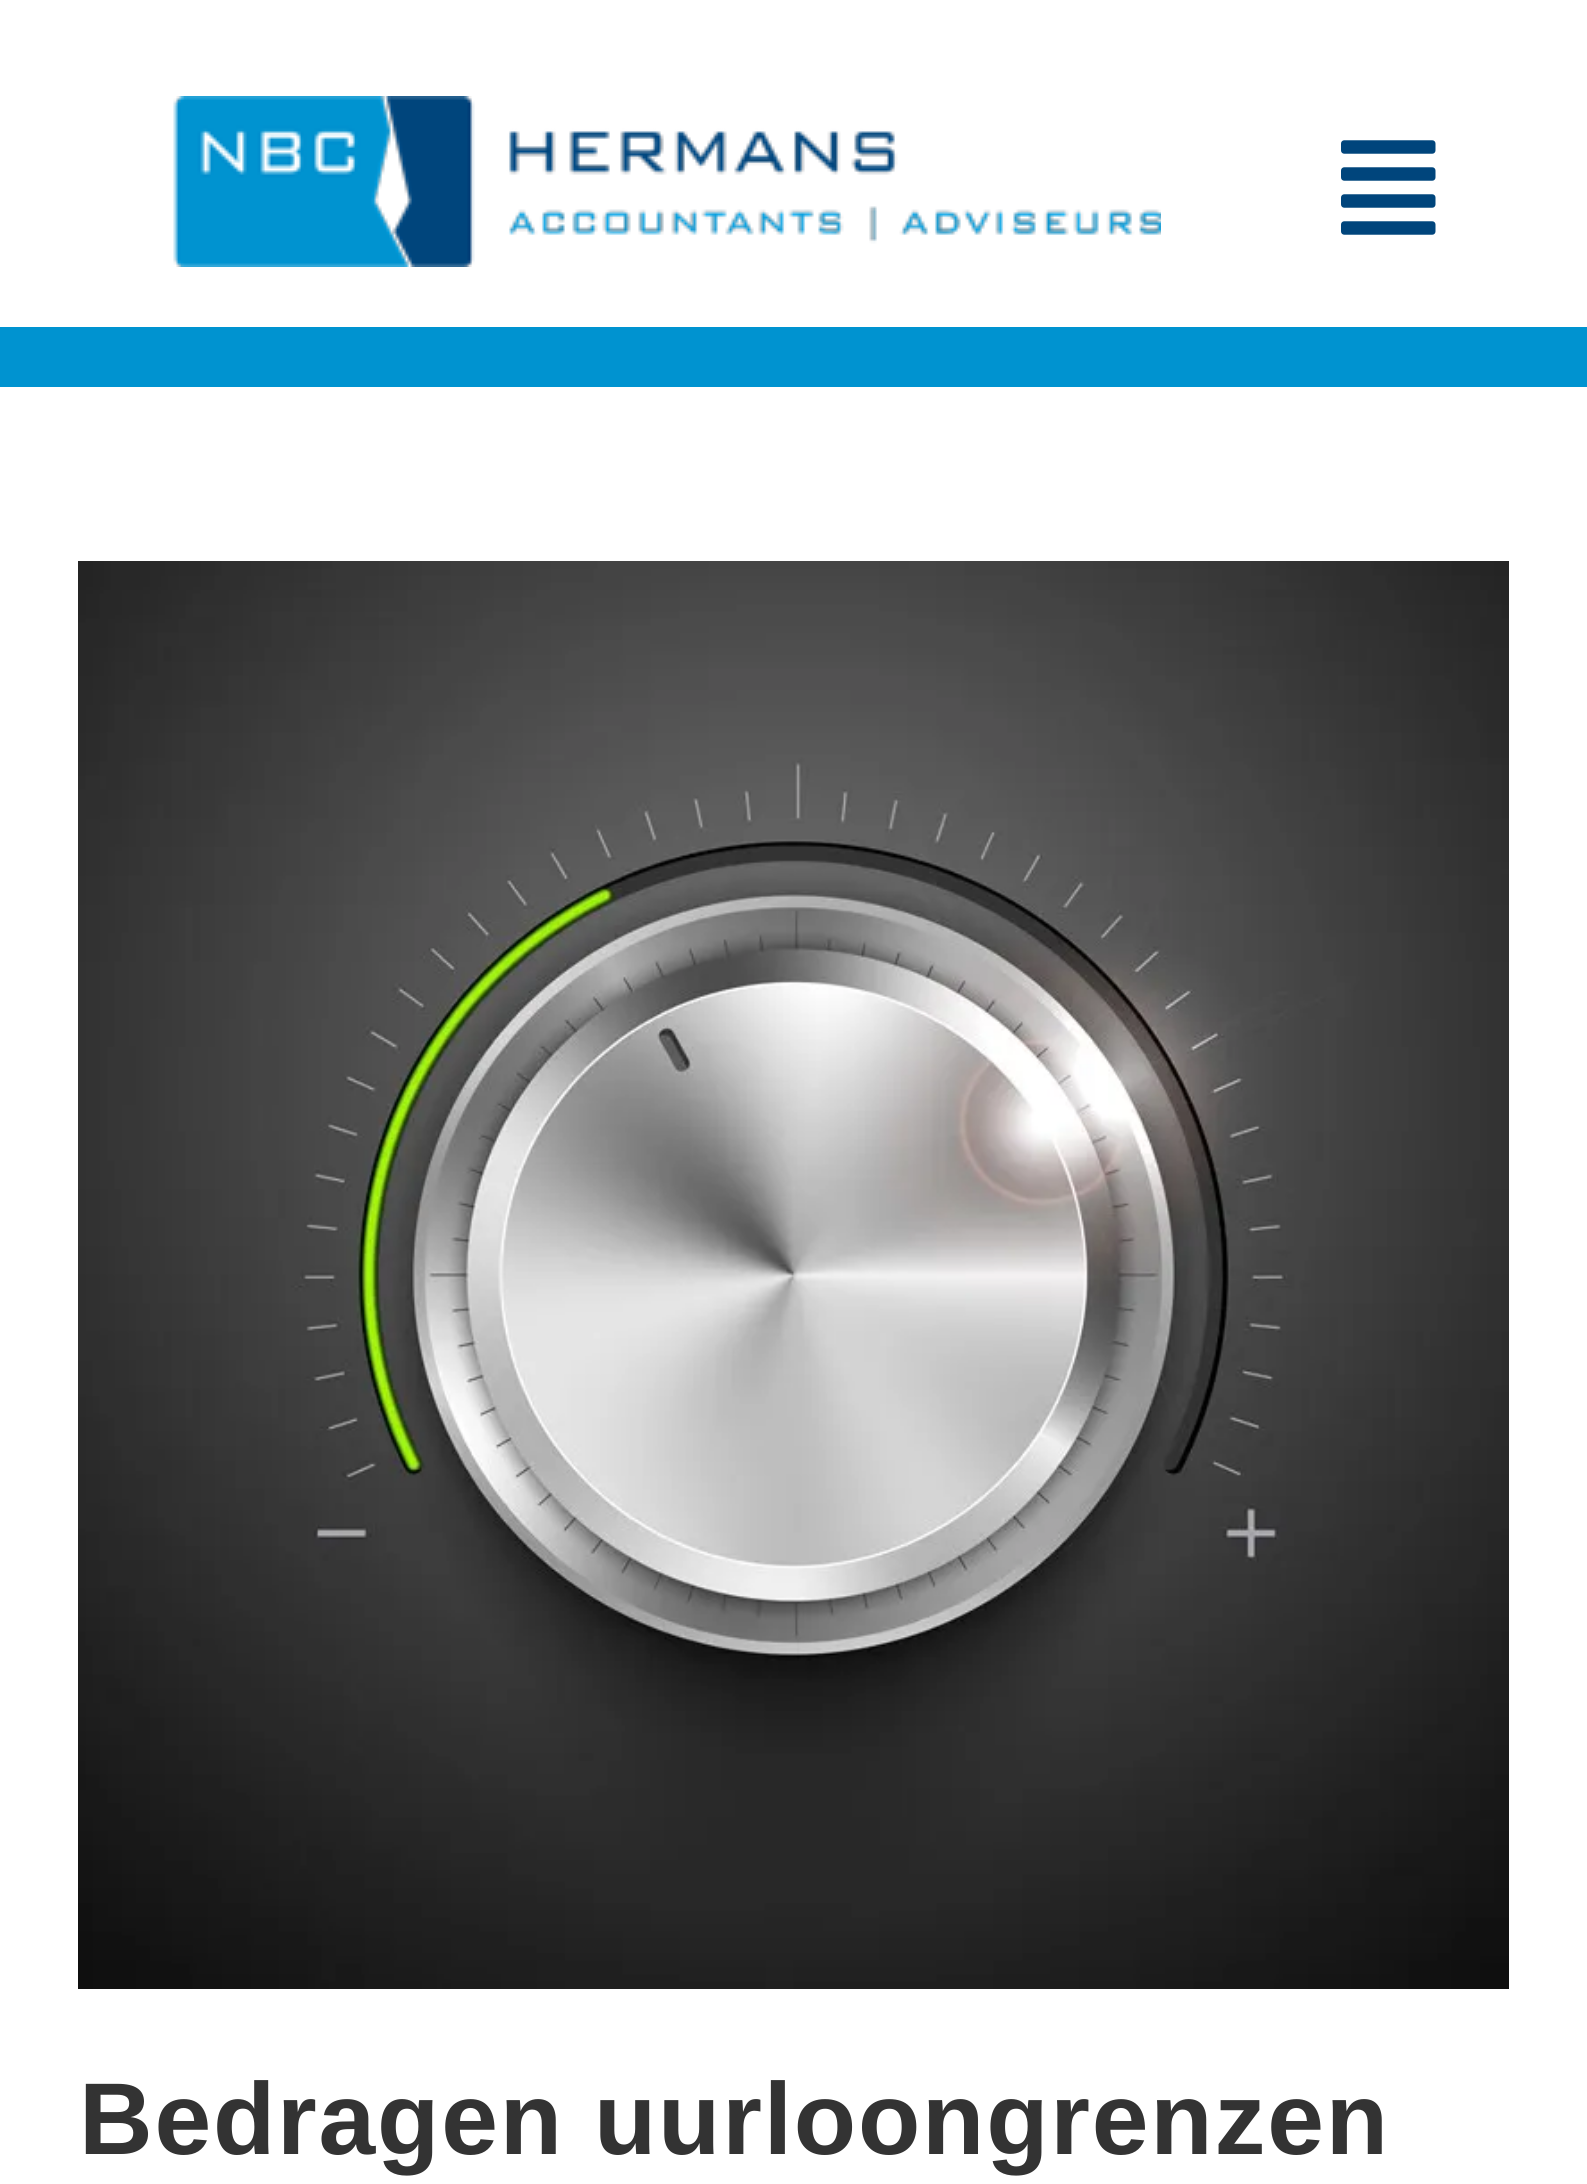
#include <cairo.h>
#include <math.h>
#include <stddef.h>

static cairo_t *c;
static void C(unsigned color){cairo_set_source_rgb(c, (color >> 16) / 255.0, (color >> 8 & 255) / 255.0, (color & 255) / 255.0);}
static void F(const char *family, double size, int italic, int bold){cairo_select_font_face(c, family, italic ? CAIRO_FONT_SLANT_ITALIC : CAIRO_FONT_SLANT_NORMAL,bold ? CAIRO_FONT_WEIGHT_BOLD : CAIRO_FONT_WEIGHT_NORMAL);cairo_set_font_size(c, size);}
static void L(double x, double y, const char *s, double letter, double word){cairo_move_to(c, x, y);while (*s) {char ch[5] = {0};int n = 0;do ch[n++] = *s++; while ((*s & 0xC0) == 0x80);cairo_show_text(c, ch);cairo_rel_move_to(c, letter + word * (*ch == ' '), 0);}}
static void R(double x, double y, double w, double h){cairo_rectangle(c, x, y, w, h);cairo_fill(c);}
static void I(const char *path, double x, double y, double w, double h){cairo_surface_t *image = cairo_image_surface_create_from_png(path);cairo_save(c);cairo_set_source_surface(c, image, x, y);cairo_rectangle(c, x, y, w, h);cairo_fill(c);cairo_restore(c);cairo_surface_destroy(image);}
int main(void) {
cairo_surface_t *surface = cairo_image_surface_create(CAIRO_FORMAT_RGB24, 1587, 2184);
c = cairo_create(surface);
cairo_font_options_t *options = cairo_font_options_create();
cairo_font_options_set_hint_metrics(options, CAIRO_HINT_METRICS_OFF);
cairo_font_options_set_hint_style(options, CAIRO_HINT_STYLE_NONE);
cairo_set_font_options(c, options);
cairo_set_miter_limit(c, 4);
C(0xffffff);
cairo_paint(c);
I("1.png",173,96,988,171);
I("2.png",1341,140,95,95);
C(0x0093d0);
R(0,327,1587,60);
I("3.png",78,561,1431,1428);
F("Liberation Sans",102,0,1);
C(0x333333);
L(79,2154,"Bedragen uurloongrenzen",1.8,0);
cairo_surface_write_to_png(surface, "o.png");
cairo_font_options_destroy(options);
cairo_destroy(c);
cairo_surface_destroy(surface);
return 0;
}
